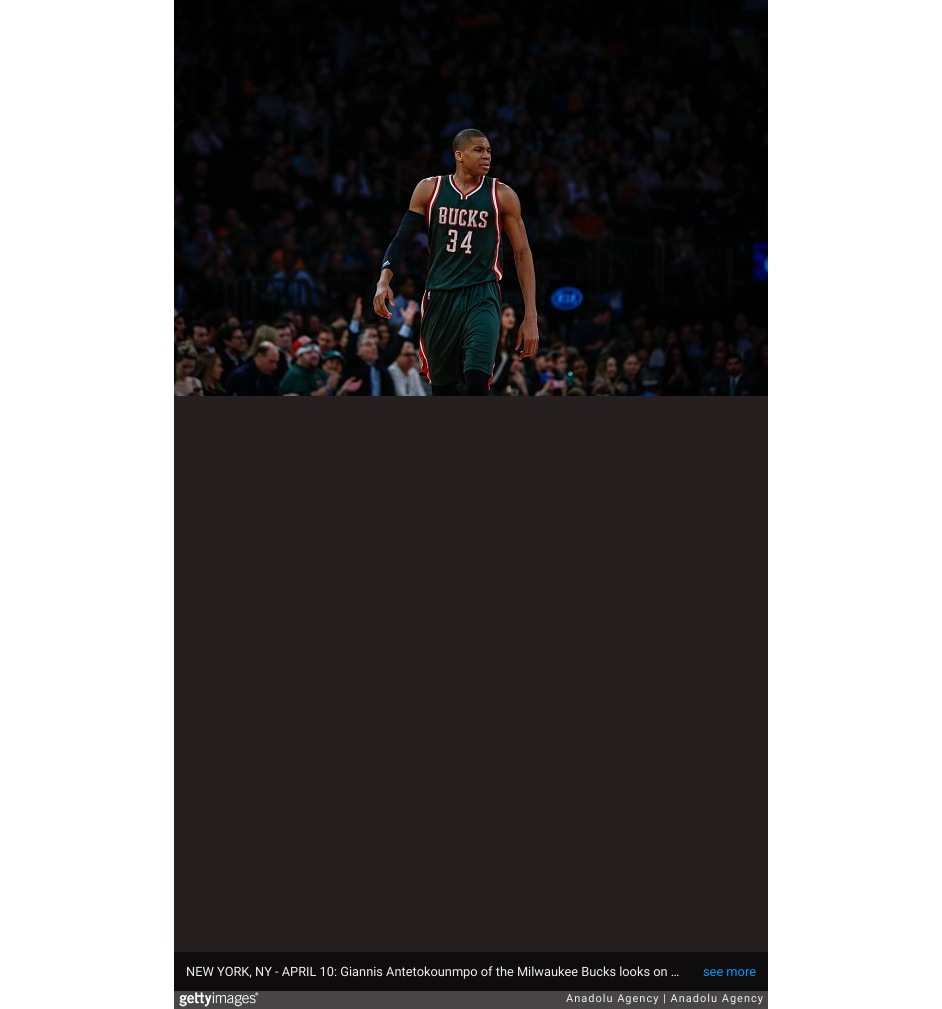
#include <cairo.h>
#include <math.h>
#include <stddef.h>

static cairo_t *c;
static void C(unsigned color){cairo_set_source_rgb(c, (color >> 16) / 255.0, (color >> 8 & 255) / 255.0, (color & 255) / 255.0);}
static void F(const char *family, double size, int italic, int bold){cairo_select_font_face(c, family, italic ? CAIRO_FONT_SLANT_ITALIC : CAIRO_FONT_SLANT_NORMAL,bold ? CAIRO_FONT_WEIGHT_BOLD : CAIRO_FONT_WEIGHT_NORMAL);cairo_set_font_size(c, size);}
static void T(double x, double y, const char *s){cairo_move_to(c, x, y);cairo_show_text(c, s);}
static void L(double x, double y, const char *s, double letter, double word){cairo_move_to(c, x, y);while (*s) {char ch[5] = {0};int n = 0;do ch[n++] = *s++; while ((*s & 0xC0) == 0x80);cairo_show_text(c, ch);cairo_rel_move_to(c, letter + word * (*ch == ' '), 0);}}
static void R(double x, double y, double w, double h){cairo_rectangle(c, x, y, w, h);cairo_fill(c);}
static void I(const char *path, double x, double y, double w, double h){cairo_surface_t *image = cairo_image_surface_create_from_png(path);cairo_save(c);cairo_set_source_surface(c, image, x, y);cairo_rectangle(c, x, y, w, h);cairo_fill(c);cairo_restore(c);cairo_surface_destroy(image);}
int main(void) {
cairo_surface_t *surface = cairo_image_surface_create(CAIRO_FORMAT_RGB24, 942, 1009);
c = cairo_create(surface);
cairo_font_options_t *options = cairo_font_options_create();
cairo_font_options_set_hint_metrics(options, CAIRO_HINT_METRICS_OFF);
cairo_font_options_set_hint_style(options, CAIRO_HINT_STYLE_NONE);
cairo_set_font_options(c, options);
cairo_set_miter_limit(c, 4);
C(0xffffff);
cairo_paint(c);
C(0x251f20);
R(174,396,594,556);
I("1.png",174,0,594,396);
C(0x0f0c0d);
R(174,952,594,39);
F("Roboto",12.8,0,0);
C(0xeeeeee);
T(186,976,"NEW YORK, NY - APRIL 10: Giannis Antetokounmpo of the Milwaukee Bucks looks on …");
C(0x0099ff);
T(703,976,"see more");
C(0x474545);
R(174,991,594,18);
I("2.png",179,992,80,15);
F("Roboto",11,0,0);
C(0xeeeeee);
L(566,1002,"Anadolu Agency | Anadolu Agency",1,0);
cairo_surface_write_to_png(surface, "o.png");
cairo_font_options_destroy(options);
cairo_destroy(c);
cairo_surface_destroy(surface);
return 0;
}
